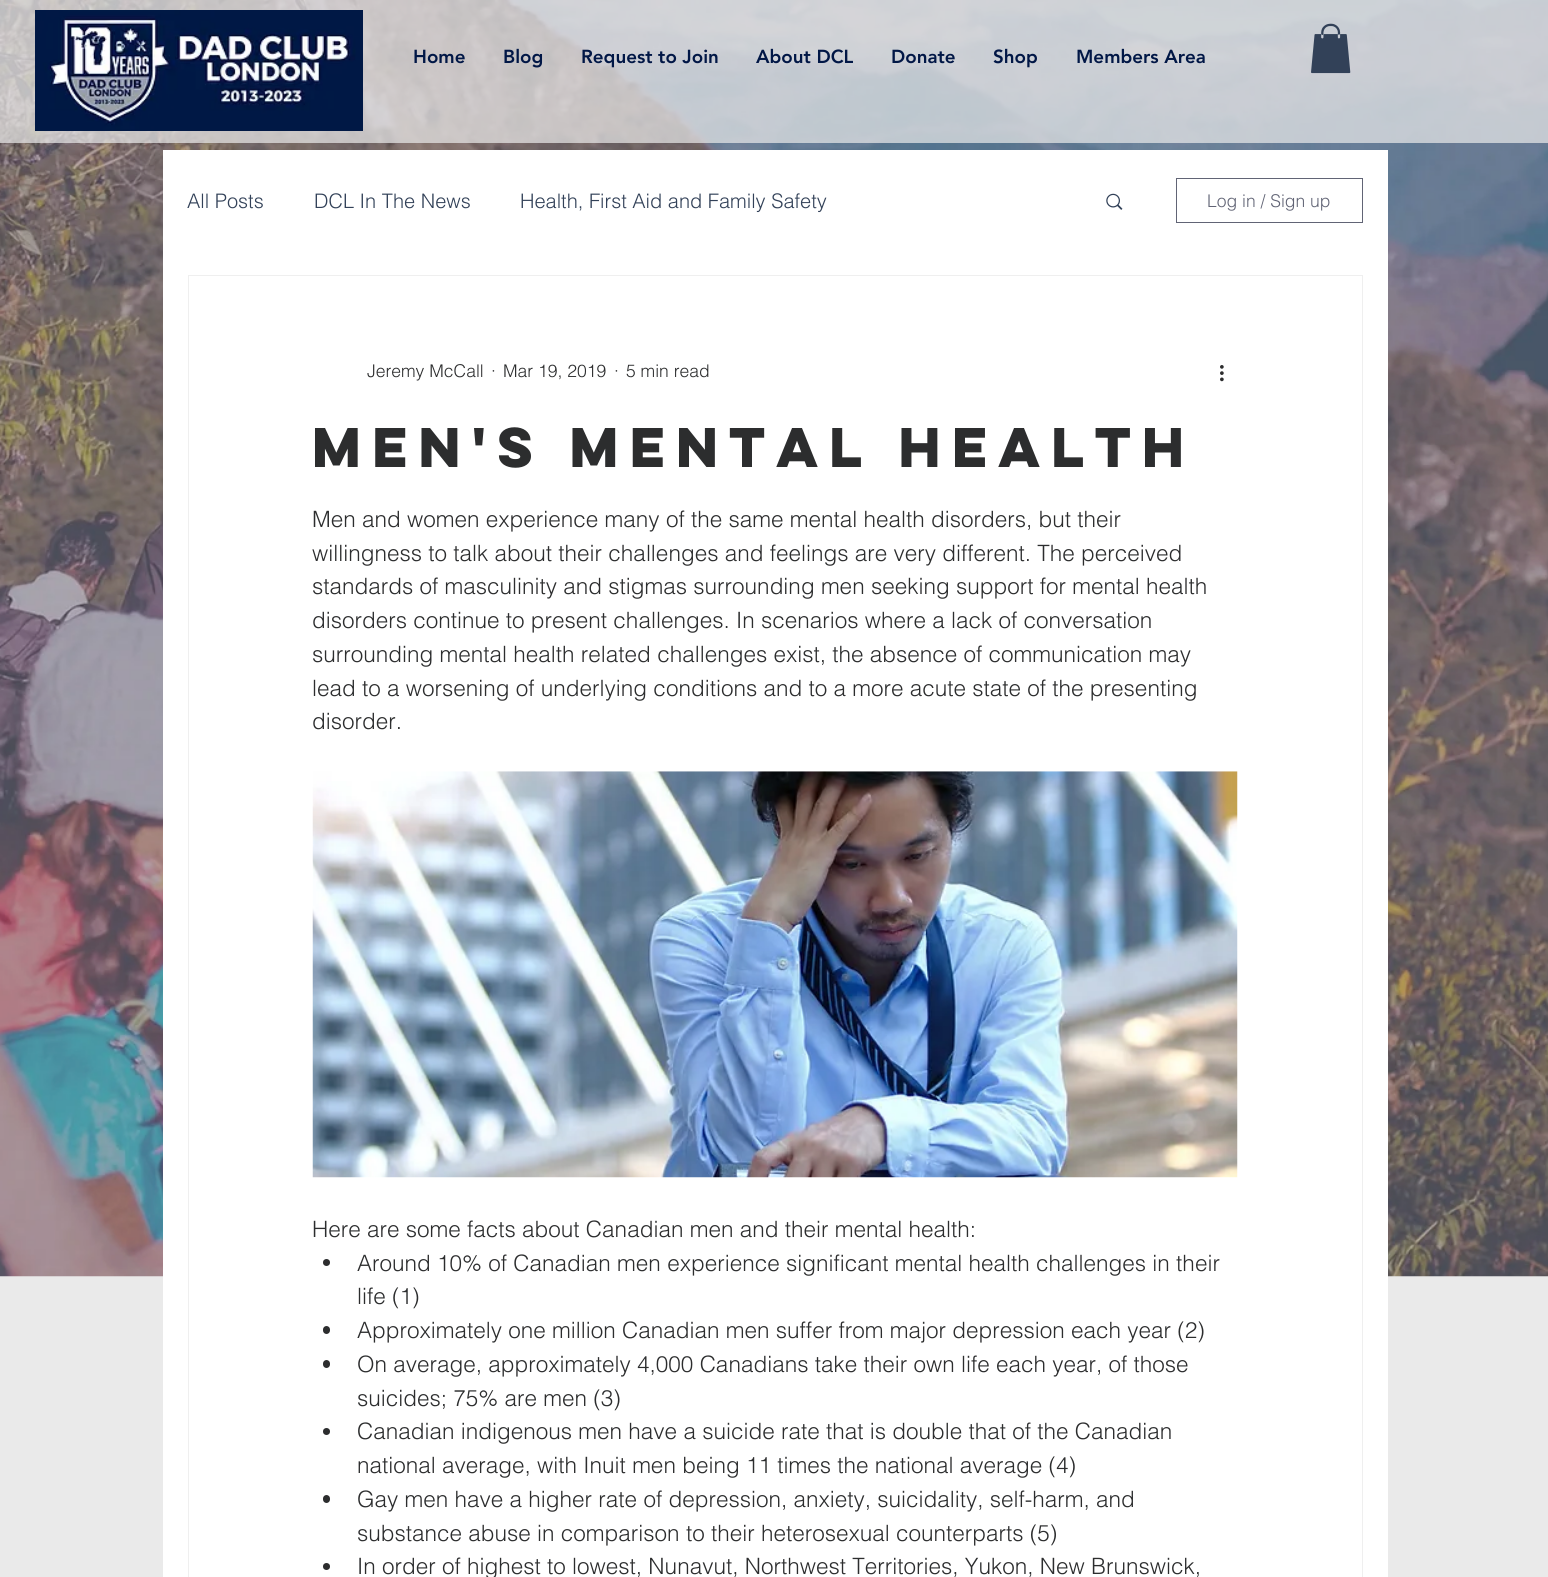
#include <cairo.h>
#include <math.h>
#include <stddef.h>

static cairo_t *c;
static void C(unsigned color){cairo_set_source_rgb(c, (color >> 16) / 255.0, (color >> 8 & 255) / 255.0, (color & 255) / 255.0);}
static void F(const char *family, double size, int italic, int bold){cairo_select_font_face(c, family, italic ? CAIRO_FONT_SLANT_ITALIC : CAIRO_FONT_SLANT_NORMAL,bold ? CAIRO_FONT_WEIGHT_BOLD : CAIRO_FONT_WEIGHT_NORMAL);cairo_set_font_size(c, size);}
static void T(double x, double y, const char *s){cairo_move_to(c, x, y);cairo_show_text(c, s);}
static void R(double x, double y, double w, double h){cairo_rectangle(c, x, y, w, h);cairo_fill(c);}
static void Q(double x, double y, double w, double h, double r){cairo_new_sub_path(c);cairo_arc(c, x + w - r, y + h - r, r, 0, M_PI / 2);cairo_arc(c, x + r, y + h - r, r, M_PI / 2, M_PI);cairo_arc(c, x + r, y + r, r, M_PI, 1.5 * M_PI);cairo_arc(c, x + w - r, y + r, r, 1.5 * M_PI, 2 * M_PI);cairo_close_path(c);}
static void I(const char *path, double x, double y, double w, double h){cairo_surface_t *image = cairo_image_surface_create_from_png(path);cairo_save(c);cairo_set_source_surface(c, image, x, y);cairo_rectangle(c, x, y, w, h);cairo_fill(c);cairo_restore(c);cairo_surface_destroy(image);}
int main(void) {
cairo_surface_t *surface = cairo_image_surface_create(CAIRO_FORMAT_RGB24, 1548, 1577);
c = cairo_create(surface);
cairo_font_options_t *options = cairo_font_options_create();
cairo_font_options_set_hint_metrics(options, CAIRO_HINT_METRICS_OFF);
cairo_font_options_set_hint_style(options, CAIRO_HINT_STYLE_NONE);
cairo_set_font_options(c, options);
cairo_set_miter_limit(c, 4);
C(0xeaeaea);
cairo_paint(c);
I("1.png",0,0,1548,1277);
cairo_set_source_rgba(c,0.918,0.918,0.918,0.71);
R(0,0,1548,143);
I("2.png",35,10,328,121);
I("3.png",1311,23,40,51);
F("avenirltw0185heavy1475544 Black",18.75,0,0);
C(0x011746);
T(413,63,"Home");
T(503,63,"Blog");
T(581,63,"Request to Join");
T(756,63,"About DCL");
T(891,63,"Donate");
T(993,63,"Shop");
T(1076,63,"Members Area");
C(0xffffff);
R(163,150,1225,1427);
F("helvetica Light",20,0,0);
C(0x324158);
T(187,208,"All Posts");
T(314,208,"DCL In The News");
T(520,208,"Health, First Aid and Family Safety");
I("4.png",1106,193,17,17);
cairo_rectangle(c,1176.5,178.5,186,44);
C(0x616475);
cairo_set_line_width(c,1);
cairo_stroke(c);
F("helvetica Light",17.5,0,0);
T(1207,207,"Log in / Sign up");
cairo_rectangle(c,188.5,275.5,1174,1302);
C(0xefefef);
cairo_stroke(c);
C(0x2c2d2e);
T(367,377,"Jeremy McCall");
T(491,377,"·");
T(503,377,"Mar 19, 2019");
T(614,377,"·");
T(626,377,"5 min read");
I("5.png",1220,365,4,17);
F("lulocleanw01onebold",50,0,1);
T(312,467,"Men's mental health");
F("helvetica Light",22.5,0,0);
T(312,527,"Men and women experience many of the same mental health disorders, but their");
T(312,561,"willingness to talk about their challenges and feelings are very different. The perceived");
T(312,594,"standards of masculinity and stigmas surrounding men seeking support for mental health");
T(312,628,"disorders continue to present challenges. In scenarios where a lack of conversation");
T(312,662,"surrounding mental health related challenges exist, the absence of communication may");
T(312,696,"lead to a worsening of underlying conditions and to a more acute state of the presenting");
T(312,729,"disorder.");
I("6.png",312,771,926,407);
T(312,1237,"Here are some facts about Canadian men and their mental health:");
cairo_new_path(c);
cairo_arc(c,326.5,1262.5,3.5,0,2 * M_PI);
cairo_fill(c);
T(357,1271,"Around 10% of Canadian men experience significant mental health challenges in their");
T(357,1304,"life (1)");
Q(323,1326,7,8,3.5);
cairo_fill(c);
T(357,1338,"Approximately one million Canadian men suffer from major depression each year (2)");
Q(323,1360,7,8,3.5);
cairo_fill(c);
T(357,1372,"On average, approximately 4,000 Canadians take their own life each year, of those");
T(357,1406,"suicides; 75% are men (3)");
cairo_new_path(c);
cairo_arc(c,326.5,1431.5,3.5,0,2 * M_PI);
cairo_fill(c);
T(357,1439,"Canadian indigenous men have a suicide rate that is double that of the Canadian");
T(357,1473,"national average, with Inuit men being 11 times the national average (4)");
Q(323,1495,7,8,3.5);
cairo_fill(c);
T(357,1507,"Gay men have a higher rate of depression, anxiety, suicidality, self-harm, and");
T(357,1541,"substance abuse in comparison to their heterosexual counterparts (5)");
cairo_new_path(c);
cairo_arc(c,326.5,1566.5,3.5,0,2 * M_PI);
cairo_fill(c);
T(357,1574,"In order of highest to lowest, Nunavut, Northwest Territories, Yukon, New Brunswick,");
cairo_surface_write_to_png(surface, "o.png");
cairo_font_options_destroy(options);
cairo_destroy(c);
cairo_surface_destroy(surface);
return 0;
}
